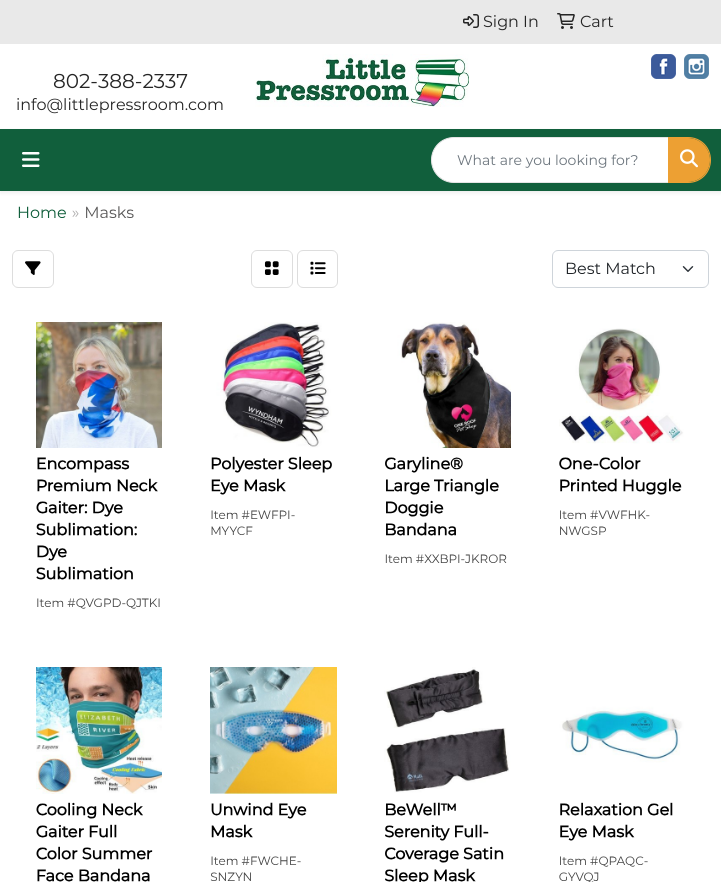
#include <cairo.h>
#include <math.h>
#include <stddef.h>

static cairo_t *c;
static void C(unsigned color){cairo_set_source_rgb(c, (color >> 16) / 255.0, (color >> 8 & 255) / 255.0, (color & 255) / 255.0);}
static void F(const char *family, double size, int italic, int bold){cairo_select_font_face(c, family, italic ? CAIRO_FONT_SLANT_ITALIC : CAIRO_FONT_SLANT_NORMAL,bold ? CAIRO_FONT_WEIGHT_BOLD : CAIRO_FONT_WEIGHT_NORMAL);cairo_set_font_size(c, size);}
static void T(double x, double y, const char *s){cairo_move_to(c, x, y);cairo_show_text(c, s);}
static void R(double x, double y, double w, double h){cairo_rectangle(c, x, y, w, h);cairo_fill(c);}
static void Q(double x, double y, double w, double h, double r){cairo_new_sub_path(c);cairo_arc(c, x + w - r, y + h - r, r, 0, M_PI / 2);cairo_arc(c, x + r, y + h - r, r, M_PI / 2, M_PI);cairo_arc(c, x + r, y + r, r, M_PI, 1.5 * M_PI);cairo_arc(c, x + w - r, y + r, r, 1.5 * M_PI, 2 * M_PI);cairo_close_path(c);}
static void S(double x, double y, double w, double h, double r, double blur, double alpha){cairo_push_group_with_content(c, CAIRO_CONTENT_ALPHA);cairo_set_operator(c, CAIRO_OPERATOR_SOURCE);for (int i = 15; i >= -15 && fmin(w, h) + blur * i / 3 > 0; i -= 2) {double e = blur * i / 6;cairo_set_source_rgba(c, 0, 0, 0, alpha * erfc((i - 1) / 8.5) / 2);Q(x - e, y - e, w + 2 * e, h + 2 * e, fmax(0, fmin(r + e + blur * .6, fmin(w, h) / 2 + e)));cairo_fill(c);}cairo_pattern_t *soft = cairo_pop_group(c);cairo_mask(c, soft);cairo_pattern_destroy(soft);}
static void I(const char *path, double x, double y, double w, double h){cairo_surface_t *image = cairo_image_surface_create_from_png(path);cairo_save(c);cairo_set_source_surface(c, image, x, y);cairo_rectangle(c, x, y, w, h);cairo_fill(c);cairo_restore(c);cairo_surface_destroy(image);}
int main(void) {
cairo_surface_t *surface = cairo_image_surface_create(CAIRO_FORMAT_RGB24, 721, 882);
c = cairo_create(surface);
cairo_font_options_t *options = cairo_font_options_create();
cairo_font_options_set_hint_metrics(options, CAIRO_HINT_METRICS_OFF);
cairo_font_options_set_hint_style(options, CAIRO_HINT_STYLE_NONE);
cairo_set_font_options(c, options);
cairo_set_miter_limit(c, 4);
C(0xffffff);
cairo_paint(c);
C(0xe9e9e9);
R(0,0,721,44);
I("1.png",463,14,16,14);
F("Montserrat Thin",16,0,0);
C(0x252525);
T(483,27,"Sign In");
I("2.png",557,13,18,16);
T(580,27,"Cart");
I("3.png",255,54,214,53);
I("4.png",651,54,25,25);
I("5.png",684,54,25,25);
F("Montserrat Thin",20,0,0);
T(53,88,"802-388-2337");
F("Montserrat Thin",16,0,0);
T(16,110,"info@littlepressroom.com");
C(0x000000);
S(0,131,721,62,0,2,.07);
C(0x115f3c);
R(0,129,721,62);
I("6.png",22,152,18,15);
C(0xffffff);
cairo_new_path(c);
cairo_move_to(c,454,137.5);
cairo_line_to(c,668.5,137.5);
cairo_line_to(c,668.5,182.5);
cairo_line_to(c,454,182.5);
cairo_curve_to(c,441.5,182.5,431.5,172.5,431.5,160);
cairo_curve_to(c,431.5,147.5,441.5,137.5,454,137.5);
cairo_close_path(c);
cairo_fill_preserve(c);
C(0xe4e4e4);
cairo_set_line_width(c,1);
cairo_stroke(c);
F("Montserrat Thin",14,0,0);
C(0x6c757d);
T(457,165,"What are you looking for?");
C(0xeda033);
cairo_new_path(c);
cairo_move_to(c,668,138);
cairo_line_to(c,688,138);
cairo_curve_to(c,700,138,710,148,710,160);
cairo_curve_to(c,710,172,700,182,688,182);
cairo_line_to(c,668,182);
cairo_close_path(c);
cairo_fill(c);
cairo_set_fill_rule(c,CAIRO_FILL_RULE_EVEN_ODD);
cairo_new_path(c);
cairo_move_to(c,668,137);
cairo_line_to(c,688,137);
cairo_curve_to(c,701,137,711,147,711,160);
cairo_curve_to(c,711,173,701,183,688,183);
cairo_line_to(c,668,183);
cairo_close_path(c);
cairo_move_to(c,668,138);
cairo_line_to(c,688,138);
cairo_curve_to(c,700,138,710,148,710,160);
cairo_curve_to(c,710,172,700,182,688,182);
cairo_line_to(c,668,182);
cairo_close_path(c);
cairo_fill(c);
I("7.png",680,149,18,19);
I("8.png",12,206,697,676);
cairo_surface_write_to_png(surface, "o.png");
cairo_font_options_destroy(options);
cairo_destroy(c);
cairo_surface_destroy(surface);
return 0;
}
